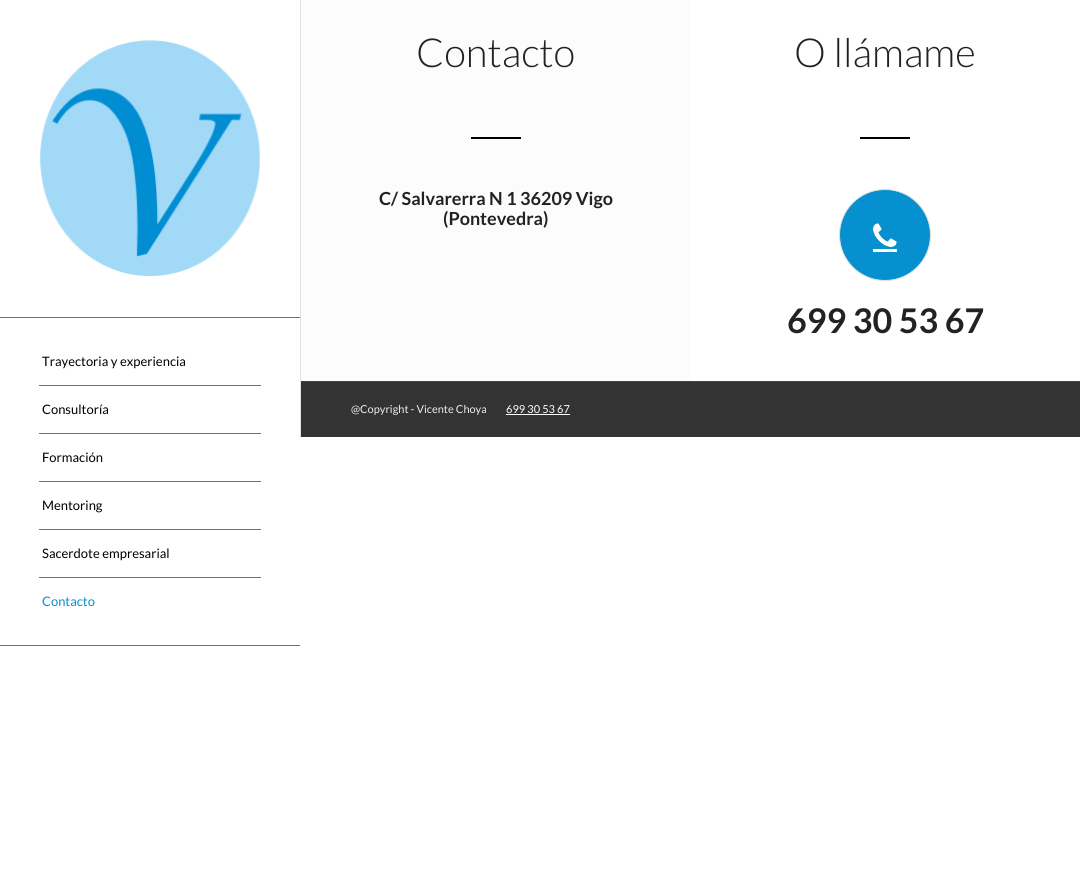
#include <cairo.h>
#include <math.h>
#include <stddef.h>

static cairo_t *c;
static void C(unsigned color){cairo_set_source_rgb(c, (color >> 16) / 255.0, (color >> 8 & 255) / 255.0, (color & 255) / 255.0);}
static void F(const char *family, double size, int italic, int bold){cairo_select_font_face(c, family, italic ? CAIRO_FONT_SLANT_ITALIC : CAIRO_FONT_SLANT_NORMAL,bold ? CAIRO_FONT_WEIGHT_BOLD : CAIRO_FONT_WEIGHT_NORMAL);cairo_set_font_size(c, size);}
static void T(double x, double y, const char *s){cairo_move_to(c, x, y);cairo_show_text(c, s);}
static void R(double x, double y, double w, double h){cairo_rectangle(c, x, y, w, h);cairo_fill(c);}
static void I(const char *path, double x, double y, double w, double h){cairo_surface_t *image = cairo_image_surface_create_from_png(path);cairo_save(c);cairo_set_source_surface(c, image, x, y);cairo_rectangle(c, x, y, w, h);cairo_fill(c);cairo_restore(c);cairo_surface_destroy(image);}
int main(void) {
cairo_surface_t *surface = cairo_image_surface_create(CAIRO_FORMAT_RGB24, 1080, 891);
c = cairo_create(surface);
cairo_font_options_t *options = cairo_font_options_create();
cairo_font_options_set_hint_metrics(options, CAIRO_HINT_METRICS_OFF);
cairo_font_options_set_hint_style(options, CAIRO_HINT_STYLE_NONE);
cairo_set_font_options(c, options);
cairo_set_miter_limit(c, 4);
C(0xffffff);
cairo_paint(c);
C(0xe1e1e1);
R(300,0,1,437);
C(0xfcfcfc);
R(301,0,390,381);
F("Lato Light",40,0,0);
C(0x222222);
T(416,67,"Contacto");
C(0x000000);
R(471,137,50,2);
F("Lato",18,0,1);
C(0x222222);
T(379,205,"C/ Salvarerra N 1 36209 Vigo");
T(443,225,"(Pontevedra)");
F("Lato Light",40,0,0);
T(794,67,"O llámame");
C(0x000000);
R(860,137,50,2);
C(0x0790cf);
cairo_new_path(c);
cairo_arc(c,885,235,45.5,0,2 * M_PI);
cairo_fill_preserve(c);
C(0xe1e1e1);
cairo_set_line_width(c,1);
cairo_stroke(c);
I("1.png",873,223,24,24);
C(0xffffff);
R(873,249,24,3);
F("Lato",34,0,1);
C(0x222222);
T(787,333,"699 30 53 67");
C(0x333333);
R(301,382,779,55);
C(0x444444);
R(301,381,779,1);
F("Lato",11,0,0);
C(0xeeeeee);
T(351,413,"@Copyright - Vicente Choya");
C(0xffffff);
T(506,413,"699 30 53 67");
R(506,414,64,1);
C(0x0790cf);
R(0,645,300,1);
R(0,317,300,1);
I("2.png",40,40,220,236);
R(39,385,222,1);
F("Lato",13,0,0);
C(0x000000);
T(42,366,"Trayectoria y experiencia");
C(0x0790cf);
R(39,433,222,1);
C(0x000000);
T(42,414,"Consultoría");
C(0x0790cf);
R(39,481,222,1);
C(0x000000);
T(42,462,"Formación");
C(0x0790cf);
R(39,529,222,1);
C(0x000000);
T(42,510,"Mentoring");
C(0x0790cf);
R(39,577,222,1);
C(0x000000);
T(42,558,"Sacerdote empresarial");
C(0x0790cf);
T(42,606,"Contacto");
cairo_surface_write_to_png(surface, "o.png");
cairo_font_options_destroy(options);
cairo_destroy(c);
cairo_surface_destroy(surface);
return 0;
}
